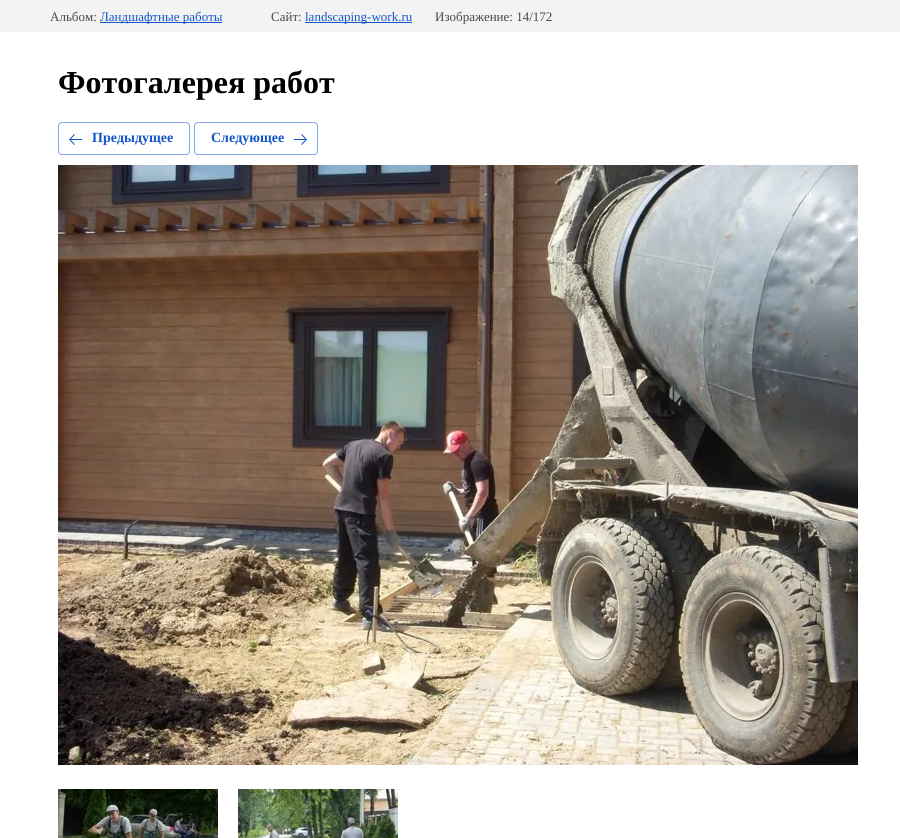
#include <cairo.h>
#include <math.h>
#include <stddef.h>

static cairo_t *c;
static void C(unsigned color){cairo_set_source_rgb(c, (color >> 16) / 255.0, (color >> 8 & 255) / 255.0, (color & 255) / 255.0);}
static void F(const char *family, double size, int italic, int bold){cairo_select_font_face(c, family, italic ? CAIRO_FONT_SLANT_ITALIC : CAIRO_FONT_SLANT_NORMAL,bold ? CAIRO_FONT_WEIGHT_BOLD : CAIRO_FONT_WEIGHT_NORMAL);cairo_set_font_size(c, size);}
static void T(double x, double y, const char *s){cairo_move_to(c, x, y);cairo_show_text(c, s);}
static void R(double x, double y, double w, double h){cairo_rectangle(c, x, y, w, h);cairo_fill(c);}
static void Q(double x, double y, double w, double h, double r){cairo_new_sub_path(c);cairo_arc(c, x + w - r, y + h - r, r, 0, M_PI / 2);cairo_arc(c, x + r, y + h - r, r, M_PI / 2, M_PI);cairo_arc(c, x + r, y + r, r, M_PI, 1.5 * M_PI);cairo_arc(c, x + w - r, y + r, r, 1.5 * M_PI, 2 * M_PI);cairo_close_path(c);}
static void I(const char *path, double x, double y, double w, double h){cairo_surface_t *image = cairo_image_surface_create_from_png(path);cairo_save(c);cairo_set_source_surface(c, image, x, y);cairo_rectangle(c, x, y, w, h);cairo_fill(c);cairo_restore(c);cairo_surface_destroy(image);}
int main(void) {
cairo_surface_t *surface = cairo_image_surface_create(CAIRO_FORMAT_RGB24, 900, 838);
c = cairo_create(surface);
cairo_font_options_t *options = cairo_font_options_create();
cairo_font_options_set_hint_metrics(options, CAIRO_HINT_METRICS_OFF);
cairo_font_options_set_hint_style(options, CAIRO_HINT_STYLE_NONE);
cairo_set_font_options(c, options);
cairo_set_miter_limit(c, 4);
C(0xffffff);
cairo_paint(c);
C(0xf3f3f3);
R(0,0,900,32);
F("Liberation Serif",13,0,0);
C(0x484848);
T(50,21,"Альбом:");
C(0x1155cc);
R(100,22,122,1);
T(100,21,"Ландшафтные работы");
C(0x484848);
T(271,21,"Сайт:");
C(0x1155cc);
R(305,22,107,1);
T(305,21,"landscaping-work.ru");
C(0x484848);
T(435,21,"Изображение: 14/172");
F("Liberation Serif",32,0,1);
C(0x000000);
T(58,93,"Фотогалерея работ");
Q(58.5,122.5,131,32,3.5);
C(0x88aae6);
cairo_set_line_width(c,1);
cairo_stroke(c);
I("1.png",69,134,13,11);
F("Liberation Serif",14,0,1);
C(0x1155cc);
T(92,142,"Предыдущее");
Q(194.5,122.5,123,32,3.5);
C(0x88aae6);
cairo_stroke(c);
C(0x1155cc);
T(211,142,"Следующее");
I("2.png",294,134,13,11);
I("3.png",58,165,800,600);
I("4.png",58,789,160,49);
I("5.png",238,789,160,49);
cairo_surface_write_to_png(surface, "o.png");
cairo_font_options_destroy(options);
cairo_destroy(c);
cairo_surface_destroy(surface);
return 0;
}
